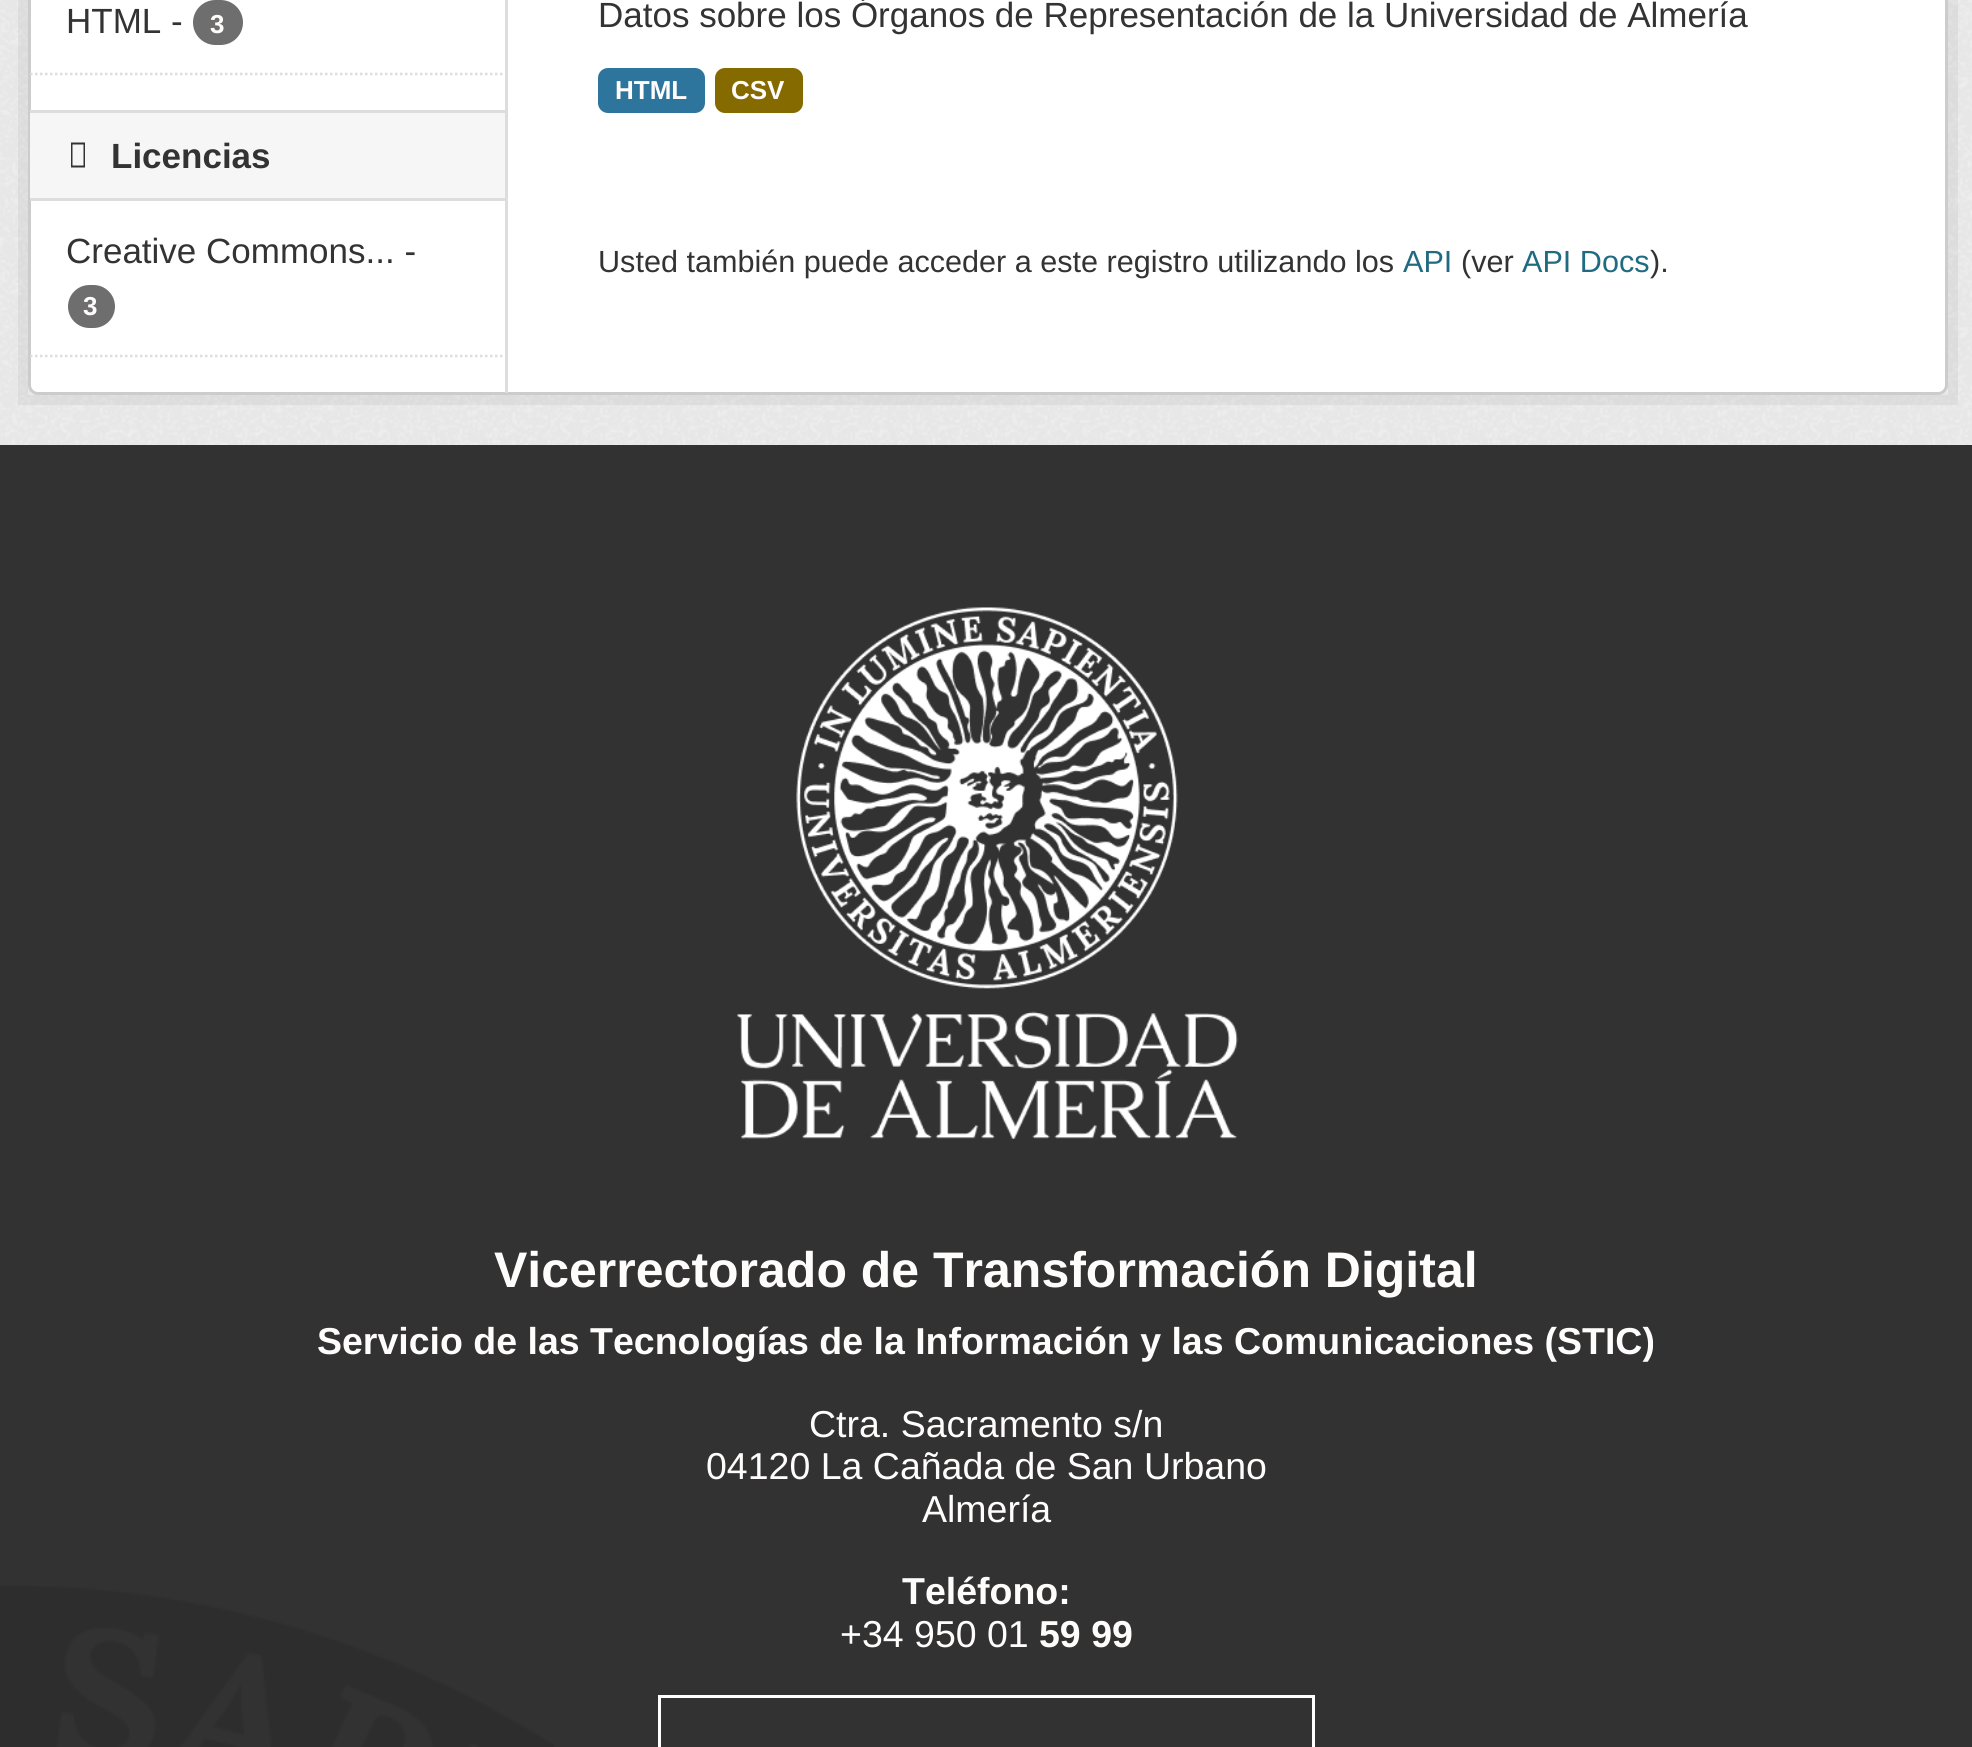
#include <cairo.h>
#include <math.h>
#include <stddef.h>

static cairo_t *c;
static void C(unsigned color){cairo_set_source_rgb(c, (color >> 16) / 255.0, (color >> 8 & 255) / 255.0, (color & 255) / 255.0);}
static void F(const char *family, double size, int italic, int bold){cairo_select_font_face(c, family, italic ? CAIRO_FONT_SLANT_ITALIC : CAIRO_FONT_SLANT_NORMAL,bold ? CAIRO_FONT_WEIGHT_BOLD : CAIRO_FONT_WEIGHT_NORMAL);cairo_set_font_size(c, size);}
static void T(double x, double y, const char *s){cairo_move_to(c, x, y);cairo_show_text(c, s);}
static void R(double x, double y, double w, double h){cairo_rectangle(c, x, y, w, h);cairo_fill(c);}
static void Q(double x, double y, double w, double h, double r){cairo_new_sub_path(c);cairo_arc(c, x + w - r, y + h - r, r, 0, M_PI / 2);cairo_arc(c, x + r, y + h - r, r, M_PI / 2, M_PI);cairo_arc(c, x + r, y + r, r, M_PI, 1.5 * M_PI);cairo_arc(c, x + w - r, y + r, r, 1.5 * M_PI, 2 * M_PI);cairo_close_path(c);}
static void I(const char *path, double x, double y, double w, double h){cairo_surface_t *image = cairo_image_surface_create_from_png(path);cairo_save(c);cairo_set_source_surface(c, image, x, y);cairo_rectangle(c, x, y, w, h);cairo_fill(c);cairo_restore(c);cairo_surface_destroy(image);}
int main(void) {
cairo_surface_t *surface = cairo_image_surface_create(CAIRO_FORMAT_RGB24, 1972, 1747);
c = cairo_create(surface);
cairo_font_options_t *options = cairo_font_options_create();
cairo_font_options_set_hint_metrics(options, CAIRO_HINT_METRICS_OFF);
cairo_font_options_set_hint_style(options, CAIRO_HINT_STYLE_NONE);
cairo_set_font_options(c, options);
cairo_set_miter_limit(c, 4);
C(0x323232);
cairo_paint(c);
C(0xeeeeee);
R(0,0,1972,445);
I("1.png",0,0,1972,445);
cairo_rectangle(c,23,-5,1930,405);
cairo_set_source_rgba(c,0,0,0,0.05);
cairo_set_line_width(c,10);
cairo_stroke(c);
C(0xffffff);
Q(29.5,-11.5,1917,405,8.5);
cairo_fill_preserve(c);
C(0xcccccc);
cairo_set_line_width(c,3);
cairo_stroke(c);
F("Liberation Sans",35,0,0);
C(0x333333);
T(66,33,"HTML -");
C(0x6e6e6e);
Q(193,0,50,45,22.5);
cairo_fill(c);
F("Liberation Sans",26,0,1);
C(0xfffcfc);
T(210,33,"3");
cairo_new_path(c);
cairo_move_to(c,30,74);
cairo_line_to(c,505,74);
C(0xdddddd);
cairo_set_line_width(c,2.5);
cairo_set_dash(c,(double[]){2.5,2.5},2,0);
cairo_stroke(c);
C(0xf6f6f6);
R(30,113,475,85);
C(0xdddddd);
R(30,110,475,3);
R(30,198,475,3);
C(0x333333);
cairo_new_path(c);
cairo_move_to(c,71,167.5);
cairo_line_to(c,71,142.5);
cairo_line_to(c,85,142.5);
cairo_line_to(c,85,167.5);
cairo_close_path(c);
cairo_move_to(c,72.5,165.5);
cairo_line_to(c,83.5,165.5);
cairo_line_to(c,83.5,144.5);
cairo_line_to(c,72.5,144.5);
cairo_close_path(c);
cairo_fill(c);
F("Liberation Sans",35,0,1);
T(111,168,"Licencias");
F("Liberation Sans",35,0,0);
T(66,263,"Creative Commons... -");
C(0x6e6e6e);
Q(68,285,47,43,21.5);
cairo_fill(c);
F("Liberation Sans",26,0,1);
C(0xfffcfc);
T(83,315,"3");
cairo_new_path(c);
cairo_move_to(c,30,356);
cairo_line_to(c,505,356);
C(0xdddddd);
cairo_stroke(c);
R(505,0,3,393);
F("Liberation Sans",35,0,0);
C(0x333333);
T(598,27,"Datos sobre los Órganos de Representación de la Universidad de Almería");
C(0x2e759e);
Q(598,68,107,45,10);
cairo_fill(c);
F("Liberation Sans",26,0,1);
C(0xfffcfc);
T(615,99,"HTML");
C(0x856a00);
Q(715,68,88,45,10);
cairo_fill(c);
C(0xfffcfc);
T(731,99,"CSV");
F("Liberation Sans",30.6,0,0);
C(0x333333);
T(598,272,"Usted también puede acceder a este registro utilizando los");
C(0x206b82);
T(1403,272,"API");
C(0x333333);
T(1461,272,"(ver");
C(0x206b82);
T(1522,272,"API Docs");
C(0x333333);
T(1650,272,").");
I("2.png",0,1586,554,161);
I("3.png",737,607,501,532);
F("Liberation Sans",50,0,1);
C(0xfffcfc);
T(494,1287,"Vicerrectorado de Transformación Digital");
F("Liberation Sans",37.5,0,1);
T(317,1354,"Servicio de las Tecnologías de la Información y las Comunicaciones (STIC)");
F("Liberation Sans",37.5,0,0);
T(809,1437,"Ctra. Sacramento s/n");
T(706,1479,"04120 La Cañada de San Urbano");
T(922,1522,"Almería");
F("Liberation Sans",37.5,0,1);
T(902,1604,"Teléfono:");
F("Liberation Sans",37.5,0,0);
T(840,1647,"+34 950 01");
F("Liberation Sans",37.5,0,1);
T(1039,1647,"59 99");
cairo_rectangle(c,659.5,1696.5,654,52);
C(0xffffff);
cairo_set_line_width(c,3);
cairo_set_dash(c,NULL,0,0);
cairo_stroke(c);
cairo_surface_write_to_png(surface, "o.png");
cairo_font_options_destroy(options);
cairo_destroy(c);
cairo_surface_destroy(surface);
return 0;
}
